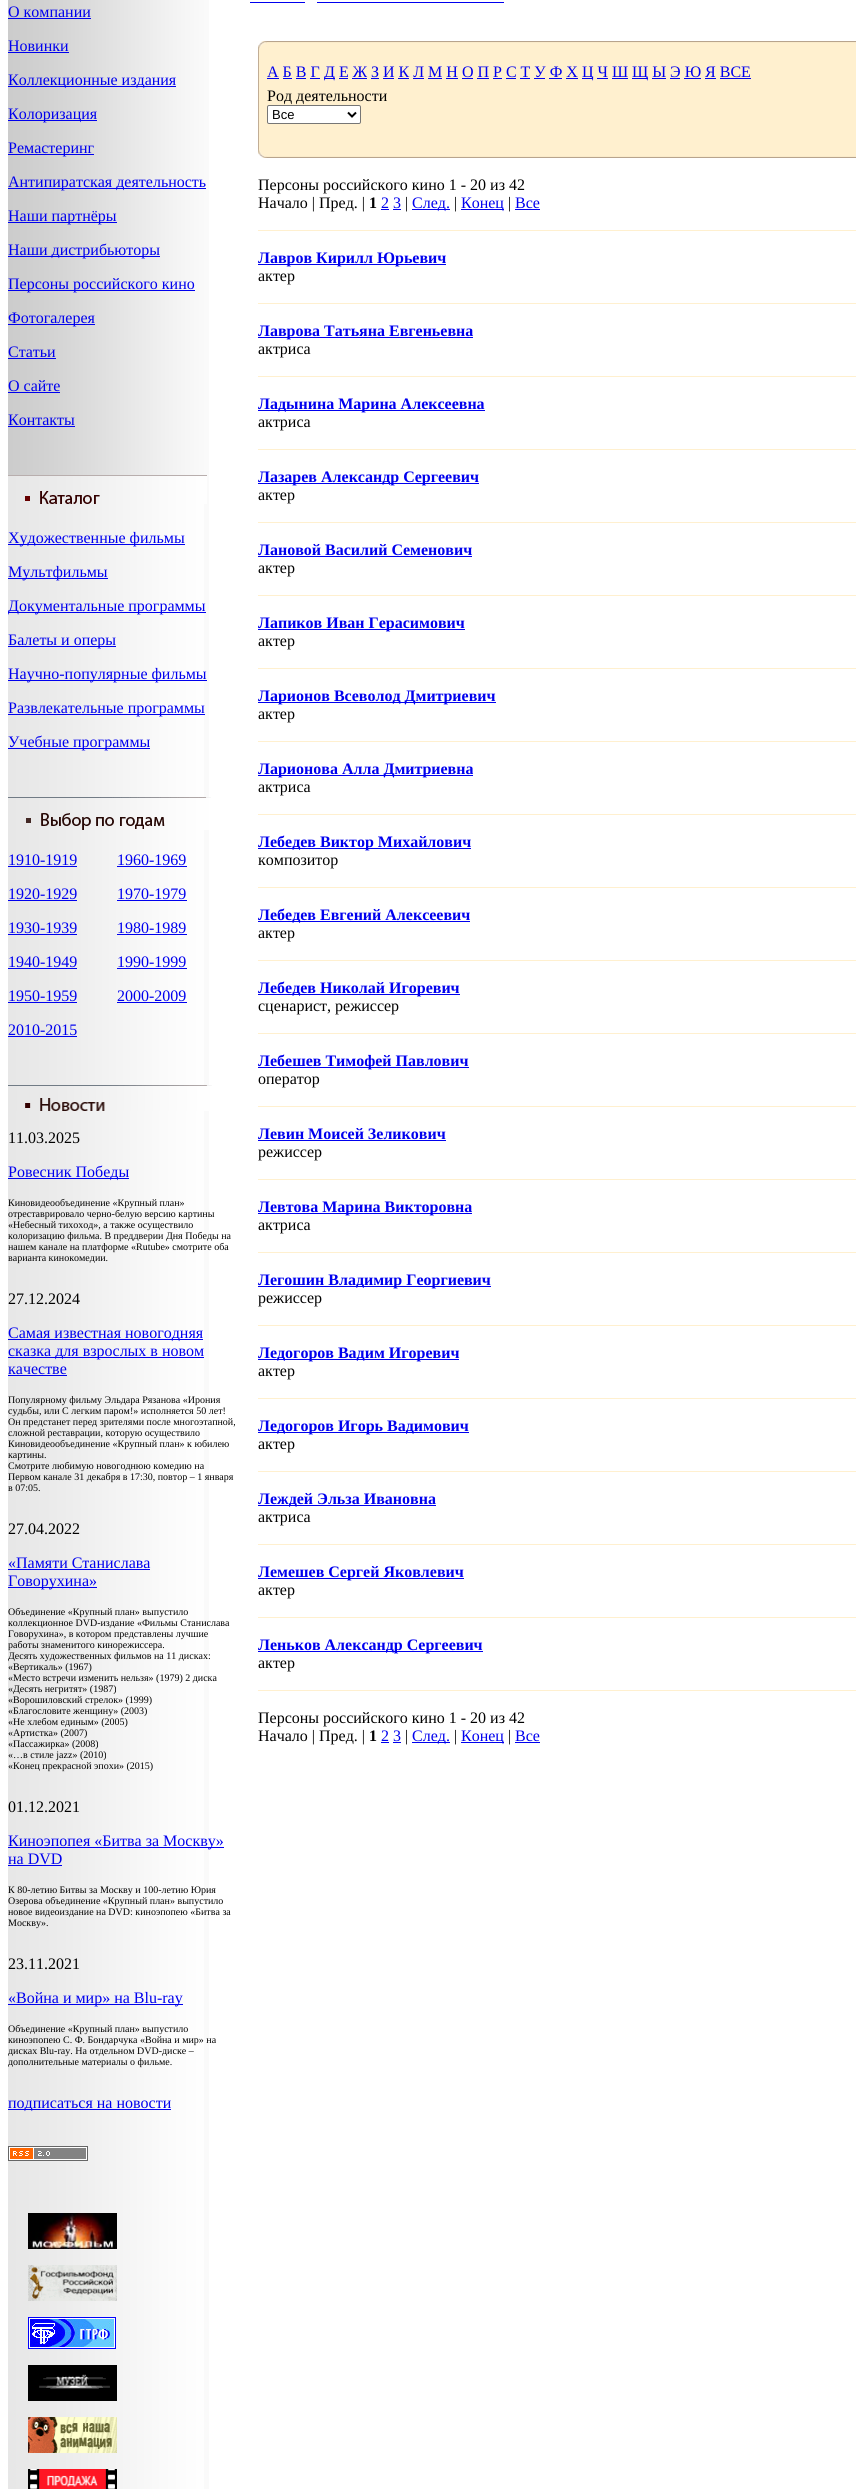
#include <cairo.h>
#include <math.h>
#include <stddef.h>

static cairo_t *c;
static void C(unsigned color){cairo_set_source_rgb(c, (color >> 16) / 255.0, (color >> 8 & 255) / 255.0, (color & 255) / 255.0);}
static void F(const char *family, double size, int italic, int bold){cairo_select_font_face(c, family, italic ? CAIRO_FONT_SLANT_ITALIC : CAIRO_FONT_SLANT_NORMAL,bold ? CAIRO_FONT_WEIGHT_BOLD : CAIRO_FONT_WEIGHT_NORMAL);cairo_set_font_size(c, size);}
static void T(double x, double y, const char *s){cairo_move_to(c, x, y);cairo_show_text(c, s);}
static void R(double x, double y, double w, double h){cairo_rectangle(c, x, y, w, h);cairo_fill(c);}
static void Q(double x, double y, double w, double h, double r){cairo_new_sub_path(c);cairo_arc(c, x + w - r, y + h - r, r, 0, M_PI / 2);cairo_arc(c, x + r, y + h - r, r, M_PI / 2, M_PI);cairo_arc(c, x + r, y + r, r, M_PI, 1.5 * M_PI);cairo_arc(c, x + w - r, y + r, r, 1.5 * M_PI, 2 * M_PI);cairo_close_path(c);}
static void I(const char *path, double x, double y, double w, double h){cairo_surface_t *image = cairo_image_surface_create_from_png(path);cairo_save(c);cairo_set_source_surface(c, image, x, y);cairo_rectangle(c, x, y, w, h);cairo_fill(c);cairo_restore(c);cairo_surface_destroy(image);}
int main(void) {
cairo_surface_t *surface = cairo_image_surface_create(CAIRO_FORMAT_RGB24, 856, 2489);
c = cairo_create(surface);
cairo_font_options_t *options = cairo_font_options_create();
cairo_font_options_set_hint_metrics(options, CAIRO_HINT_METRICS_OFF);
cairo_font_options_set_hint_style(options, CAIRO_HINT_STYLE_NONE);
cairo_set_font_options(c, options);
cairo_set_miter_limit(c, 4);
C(0xffffff);
cairo_paint(c);
I("1.png",8,0,201,2489);
F("Liberation Serif",16,0,0);
C(0x0000ee);
T(8,17,"О компании");
R(8,18,83,1);
T(8,51,"Новинки");
R(8,52,61,1);
R(8,86,168,1);
T(8,85,"Коллекционные издания");
R(8,120,89,1);
T(8,119,"Колоризация");
R(8,154,86,1);
T(8,153,"Ремастеринг");
R(8,188,198,1);
T(8,187,"Антипиратская деятельность");
R(8,222,109,1);
T(8,221,"Наши партнёры");
R(8,256,152,1);
T(8,255,"Наши дистрибьюторы");
R(8,290,187,1);
T(8,289,"Персоны российского кино");
R(8,324,87,1);
T(8,323,"Фотогалерея");
T(8,357,"Статьи");
R(8,358,48,1);
T(8,391,"О сайте");
R(8,392,52,1);
T(8,425,"Контакты");
R(8,426,67,1);
I("2.png",8,504,196,1985);
I("3.png",8,475,199,29);
R(8,544,177,1);
T(8,543,"Художественные фильмы");
R(8,578,100,1);
T(8,577,"Мультфильмы");
R(8,612,198,1);
T(8,611,"Документальные программы");
R(8,646,108,1);
T(8,645,"Балеты и оперы");
R(8,680,199,1);
T(8,679,"Научно-популярные фильмы");
R(8,714,197,1);
T(8,713,"Развлекательные программы");
R(8,748,142,1);
T(8,747,"Учебные программы");
I("4.png",8,797,203,33);
T(8,865,"1910-1919");
R(8,866,69,1);
T(117,865,"1960-1969");
R(117,866,70,1);
T(8,899,"1920-1929");
R(8,900,69,1);
T(117,899,"1970-1979");
R(117,900,70,1);
T(8,933,"1930-1939");
R(8,934,69,1);
T(117,933,"1980-1989");
R(117,934,70,1);
T(8,967,"1940-1949");
R(8,968,69,1);
T(117,967,"1990-1999");
R(117,968,70,1);
T(8,1001,"1950-1959");
R(8,1002,69,1);
T(117,1001,"2000-2009");
R(117,1002,70,1);
T(8,1035,"2010-2015");
R(8,1036,69,1);
I("5.png",8,1085,204,26);
C(0x000000);
T(8,1143,"11.03.2025");
C(0x0000ee);
R(8,1178,121,1);
T(8,1177,"Ровесник Победы");
F("Liberation Serif",10,0,0);
C(0x000000);
T(8,1206,"Киновидеообъединение «Крупный план»");
T(8,1217,"отреставрировало черно-белую версию картины");
T(8,1228,"«Небесный тихоход», а также осуществило");
T(8,1239,"колоризацию фильма. В преддверии Дня Победы на");
T(8,1250,"нашем канале на платформе «Rutube» смотрите оба");
T(8,1261,"варианта кинокомедии.");
F("Liberation Serif",16,0,0);
T(8,1304,"27.12.2024");
C(0x0000ee);
R(8,1339,195,1);
T(8,1338,"Самая известная новогодняя");
R(8,1357,196,1);
T(8,1356,"сказка для взрослых в новом");
T(8,1374,"качестве");
R(8,1375,59,1);
F("Liberation Serif",10,0,0);
C(0x000000);
T(8,1403,"Популярному фильму Эльдара Рязанова «Ирония");
T(8,1414,"судьбы, или С легким паром!» исполняется 50 лет!");
T(8,1425,"Он предстанет перед зрителями после многоэтапной,");
T(8,1436,"сложной реставрации, которую осуществило");
T(8,1447,"Киновидеообъединение «Крупный план» к юбилею");
T(8,1458,"картины.");
T(8,1469,"Смотрите любимую новогоднюю комедию на");
T(8,1480,"Первом канале 31 декабря в 17:30, повтор – 1 января");
T(8,1491,"в 07:05.");
F("Liberation Serif",16,0,0);
T(8,1534,"27.04.2022");
C(0x0000ee);
T(8,1568,"«Памяти Станислава");
R(8,1569,142,1);
R(8,1587,89,1);
T(8,1586,"Говорухина»");
F("Liberation Serif",10,0,0);
C(0x000000);
T(8,1615,"Объединение «Крупный план» выпустило");
T(8,1626,"коллекционное DVD-издание «Фильмы Станислава");
T(8,1637,"Говорухина», в котором представлены лучшие");
T(8,1648,"работы знаменитого кинорежиссера.");
T(8,1659,"Десять художественных фильмов на 11 дисках:");
T(8,1670,"«Вертикаль» (1967)");
T(8,1681,"«Место встречи изменить нельзя» (1979) 2 диска");
T(8,1692,"«Десять негритят» (1987)");
T(8,1703,"«Ворошиловский стрелок» (1999)");
T(8,1714,"«Благословите женщину» (2003)");
T(8,1725,"«Не хлебом единым» (2005)");
T(8,1736,"«Артистка» (2007)");
T(8,1747,"«Пассажирка» (2008)");
T(8,1758,"«…в стиле jazz» (2010)");
T(8,1769,"«Конец прекрасной эпохи» (2015)");
F("Liberation Serif",16,0,0);
T(8,1812,"01.12.2021");
C(0x0000ee);
R(8,1847,216,1);
T(8,1846,"Киноэпопея «Битва за Москву»");
T(8,1864,"на DVD");
R(8,1865,54,1);
F("Liberation Serif",10,0,0);
C(0x000000);
T(8,1893,"К 80-летию Битвы за Москву и 100-летию Юрия");
T(8,1904,"Озерова объединение «Крупный план» выпустило");
T(8,1915,"новое видеоиздание на DVD: киноэпопею «Битва за");
T(8,1926,"Москву».");
F("Liberation Serif",16,0,0);
T(8,1969,"23.11.2021");
C(0x0000ee);
R(8,2004,175,1);
T(8,2003,"«Война и мир» на Blu-ray");
F("Liberation Serif",10,0,0);
C(0x000000);
T(8,2032,"Объединение «Крупный план» выпустило");
T(8,2043,"киноэпопею С. Ф. Бондарчука «Война и мир» на");
T(8,2054,"дисках Blu-ray. На отдельном DVD-диске –");
T(8,2065,"дополнительные материалы о фильме.");
C(0x0000ee);
R(8,2109,163,1);
F("Liberation Serif",16,0,0);
T(8,2108,"подписаться на новости");
I("6.png",8,2146,80,15);
I("7.png",28,2213,89,36);
I("8.png",28,2265,89,36);
I("9.png",28,2317,88,32);
I("10.png",28,2365,89,36);
I("11.png",28,2417,89,36);
I("12.png",28,2469,89,20);
R(250,2,55,1);
R(317,2,187,1);
C(0xfff0cf);
R(259,43,597,113);
I("13.png",258,41,9,16);
I("14.png",267,41,589,2);
C(0xc1ad95);
R(258,57,1,85);
C(0x0000ee);
T(267,77,"А Б В Г");
R(267,78,12,1);
R(324,78,11,1);
T(324,77,"Д Е Ж З И К Л М Н О П Р С Т У Ф Х");
R(582,78,11,1);
T(582,77,"Ц Ч Ш");
R(632,78,16,1);
T(632,77,"Щ Ы Э Ю Я ВСЕ");
R(283,78,9,1);
R(296,78,10,1);
R(310,78,10,1);
R(339,78,9,1);
R(352,78,15,1);
R(371,78,8,1);
R(383,78,11,1);
R(398,78,11,1);
R(413,78,11,1);
R(428,78,14,1);
R(446,78,12,1);
R(462,78,11,1);
R(477,78,12,1);
R(493,78,9,1);
R(506,78,10,1);
R(520,78,10,1);
R(534,78,11,1);
R(549,78,13,1);
R(566,78,12,1);
R(597,78,11,1);
R(612,78,16,1);
R(652,78,14,1);
R(670,78,10,1);
R(684,78,17,1);
R(705,78,11,1);
R(720,78,31,1);
C(0x000000);
T(267,101,"Род деятельности");
C(0xffffff);
Q(267.5,105.5,93,18,1.5);
cairo_fill_preserve(c);
C(0x767676);
cairo_set_line_width(c,1);
cairo_stroke(c);
cairo_new_path(c);
cairo_move_to(c,348,112.5);
cairo_line_to(c,352,116.5);
cairo_line_to(c,356,112.5);
C(0x000000);
cairo_set_line_width(c,2);
cairo_stroke(c);
F("Liberation Sans",13,0,0);
T(272,119,"Все");
I("15.png",258,142,9,16);
I("16.png",267,156,589,2);
F("Liberation Serif",16,0,0);
T(258,190,"Персоны российского кино 1 - 20 из 42");
T(258,208,"Начало | Пред. |");
F("Liberation Serif",16,0,1);
T(369,208,"1");
F("Liberation Serif",16,0,0);
C(0x0000ee);
T(381,208,"2 3");
R(381,209,8,1);
R(393,209,8,1);
C(0x000000);
T(405,208,"|");
C(0x0000ee);
R(412,209,38,1);
T(412,208,"След.");
C(0x000000);
T(454,208,"|");
C(0x0000ee);
R(461,209,43,1);
T(461,208,"Конец");
C(0x000000);
T(508,208,"|");
C(0x0000ee);
T(515,208,"Все");
R(515,209,25,1);
C(0xfff0cf);
R(258,230,598,1);
C(0x0000ee);
R(258,264,188,1);
F("Liberation Serif",16,0,1);
T(258,263,"Лавров Кирилл Юрьевич");
F("Liberation Serif",16,0,0);
C(0x000000);
T(258,281,"актер");
C(0xfff0cf);
R(258,303,598,1);
C(0x0000ee);
R(258,337,215,1);
F("Liberation Serif",16,0,1);
T(258,336,"Лаврова Татьяна Евгеньевна");
F("Liberation Serif",16,0,0);
C(0x000000);
T(258,354,"актриса");
C(0xfff0cf);
R(258,376,598,1);
C(0x0000ee);
R(258,410,227,1);
F("Liberation Serif",16,0,1);
T(258,409,"Ладынина Марина Алексеевна");
F("Liberation Serif",16,0,0);
C(0x000000);
T(258,427,"актриса");
C(0xfff0cf);
R(258,449,598,1);
C(0x0000ee);
R(258,483,221,1);
F("Liberation Serif",16,0,1);
T(258,482,"Лазарев Александр Сергеевич");
F("Liberation Serif",16,0,0);
C(0x000000);
T(258,500,"актер");
C(0xfff0cf);
R(258,522,598,1);
F("Liberation Serif",16,0,1);
C(0x0000ee);
T(258,555,"Лановой Василий Семенович");
R(258,556,214,1);
F("Liberation Serif",16,0,0);
C(0x000000);
T(258,573,"актер");
C(0xfff0cf);
R(258,595,598,1);
C(0x0000ee);
R(258,629,207,1);
F("Liberation Serif",16,0,1);
T(258,628,"Лапиков Иван Герасимович");
F("Liberation Serif",16,0,0);
C(0x000000);
T(258,646,"актер");
C(0xfff0cf);
R(258,668,598,1);
C(0x0000ee);
R(258,702,238,1);
F("Liberation Serif",16,0,1);
T(258,701,"Ларионов Всеволод Дмитриевич");
F("Liberation Serif",16,0,0);
C(0x000000);
T(258,719,"актер");
C(0xfff0cf);
R(258,741,598,1);
C(0x0000ee);
R(258,775,215,1);
F("Liberation Serif",16,0,1);
T(258,774,"Ларионова Алла Дмитриевна");
F("Liberation Serif",16,0,0);
C(0x000000);
T(258,792,"актриса");
C(0xfff0cf);
R(258,814,598,1);
C(0x0000ee);
R(258,848,213,1);
F("Liberation Serif",16,0,1);
T(258,847,"Лебедев Виктор Михайлович");
F("Liberation Serif",16,0,0);
C(0x000000);
T(258,865,"композитор");
C(0xfff0cf);
R(258,887,598,1);
C(0x0000ee);
R(258,921,212,1);
F("Liberation Serif",16,0,1);
T(258,920,"Лебедев Евгений Алексеевич");
F("Liberation Serif",16,0,0);
C(0x000000);
T(258,938,"актер");
C(0xfff0cf);
R(258,960,598,1);
C(0x0000ee);
R(258,994,202,1);
F("Liberation Serif",16,0,1);
T(258,993,"Лебедев Николай Игоревич");
F("Liberation Serif",16,0,0);
C(0x000000);
T(258,1011,"сценарист, режисcер");
C(0xfff0cf);
R(258,1033,598,1);
C(0x0000ee);
R(258,1067,211,1);
F("Liberation Serif",16,0,1);
T(258,1066,"Лебешев Тимофей Павлович");
F("Liberation Serif",16,0,0);
C(0x000000);
T(258,1084,"оператор");
C(0xfff0cf);
R(258,1106,598,1);
F("Liberation Serif",16,0,1);
C(0x0000ee);
T(258,1139,"Левин Моисей Зеликович");
R(258,1140,188,1);
F("Liberation Serif",16,0,0);
C(0x000000);
T(258,1157,"режисcер");
C(0xfff0cf);
R(258,1179,598,1);
C(0x0000ee);
R(258,1213,214,1);
F("Liberation Serif",16,0,1);
T(258,1212,"Левтова Марина Викторовна");
F("Liberation Serif",16,0,0);
C(0x000000);
T(258,1230,"актриса");
C(0xfff0cf);
R(258,1252,598,1);
C(0x0000ee);
R(258,1286,233,1);
F("Liberation Serif",16,0,1);
T(258,1285,"Легошин Владимир Георгиевич");
F("Liberation Serif",16,0,0);
C(0x000000);
T(258,1303,"режисcер");
C(0xfff0cf);
R(258,1325,598,1);
C(0x0000ee);
R(258,1359,201,1);
F("Liberation Serif",16,0,1);
T(258,1358,"Ледогоров Вадим Игоревич");
F("Liberation Serif",16,0,0);
C(0x000000);
T(258,1376,"актер");
C(0xfff0cf);
R(258,1398,598,1);
C(0x0000ee);
R(258,1432,211,1);
F("Liberation Serif",16,0,1);
T(258,1431,"Ледогоров Игорь Вадимович");
F("Liberation Serif",16,0,0);
C(0x000000);
T(258,1449,"актер");
C(0xfff0cf);
R(258,1471,598,1);
C(0x0000ee);
R(258,1505,178,1);
F("Liberation Serif",16,0,1);
T(258,1504,"Леждей Эльза Ивановна");
F("Liberation Serif",16,0,0);
C(0x000000);
T(258,1522,"актриса");
C(0xfff0cf);
R(258,1544,598,1);
C(0x0000ee);
R(258,1578,206,1);
F("Liberation Serif",16,0,1);
T(258,1577,"Лемешев Сергей Яковлевич");
F("Liberation Serif",16,0,0);
C(0x000000);
T(258,1595,"актер");
C(0xfff0cf);
R(258,1617,598,1);
C(0x0000ee);
R(258,1651,225,1);
F("Liberation Serif",16,0,1);
T(258,1650,"Леньков Александр Сергеевич");
F("Liberation Serif",16,0,0);
C(0x000000);
T(258,1668,"актер");
C(0xfff0cf);
R(258,1690,598,1);
C(0x000000);
T(258,1723,"Персоны российского кино 1 - 20 из 42");
T(258,1741,"Начало | Пред. |");
F("Liberation Serif",16,0,1);
T(369,1741,"1");
F("Liberation Serif",16,0,0);
C(0x0000ee);
T(381,1741,"2 3");
R(381,1742,8,1);
R(393,1742,8,1);
C(0x000000);
T(405,1741,"|");
C(0x0000ee);
R(412,1742,38,1);
T(412,1741,"След.");
C(0x000000);
T(454,1741,"|");
C(0x0000ee);
R(461,1742,43,1);
T(461,1741,"Конец");
C(0x000000);
T(508,1741,"|");
C(0x0000ee);
T(515,1741,"Все");
R(515,1742,25,1);
cairo_surface_write_to_png(surface, "o.png");
cairo_font_options_destroy(options);
cairo_destroy(c);
cairo_surface_destroy(surface);
return 0;
}
